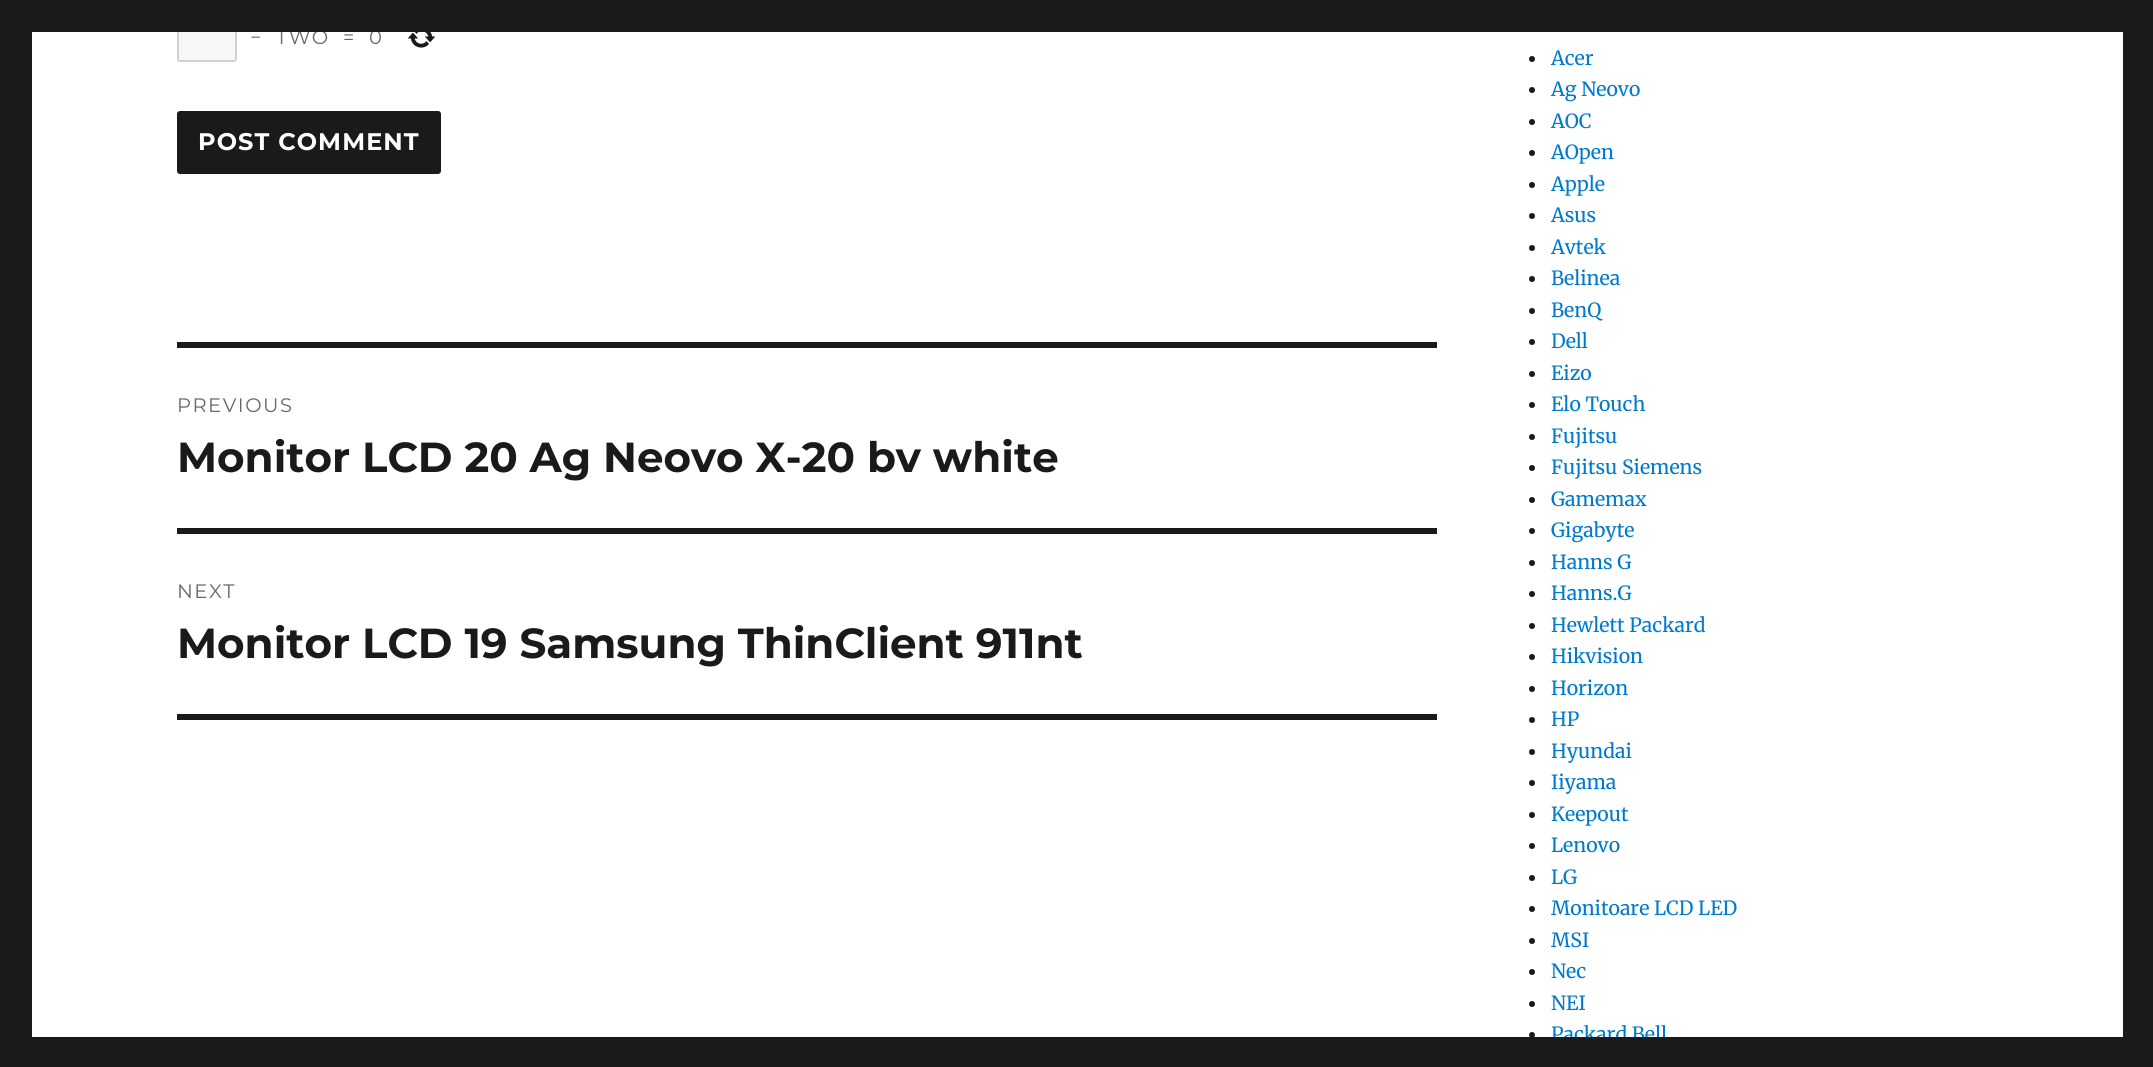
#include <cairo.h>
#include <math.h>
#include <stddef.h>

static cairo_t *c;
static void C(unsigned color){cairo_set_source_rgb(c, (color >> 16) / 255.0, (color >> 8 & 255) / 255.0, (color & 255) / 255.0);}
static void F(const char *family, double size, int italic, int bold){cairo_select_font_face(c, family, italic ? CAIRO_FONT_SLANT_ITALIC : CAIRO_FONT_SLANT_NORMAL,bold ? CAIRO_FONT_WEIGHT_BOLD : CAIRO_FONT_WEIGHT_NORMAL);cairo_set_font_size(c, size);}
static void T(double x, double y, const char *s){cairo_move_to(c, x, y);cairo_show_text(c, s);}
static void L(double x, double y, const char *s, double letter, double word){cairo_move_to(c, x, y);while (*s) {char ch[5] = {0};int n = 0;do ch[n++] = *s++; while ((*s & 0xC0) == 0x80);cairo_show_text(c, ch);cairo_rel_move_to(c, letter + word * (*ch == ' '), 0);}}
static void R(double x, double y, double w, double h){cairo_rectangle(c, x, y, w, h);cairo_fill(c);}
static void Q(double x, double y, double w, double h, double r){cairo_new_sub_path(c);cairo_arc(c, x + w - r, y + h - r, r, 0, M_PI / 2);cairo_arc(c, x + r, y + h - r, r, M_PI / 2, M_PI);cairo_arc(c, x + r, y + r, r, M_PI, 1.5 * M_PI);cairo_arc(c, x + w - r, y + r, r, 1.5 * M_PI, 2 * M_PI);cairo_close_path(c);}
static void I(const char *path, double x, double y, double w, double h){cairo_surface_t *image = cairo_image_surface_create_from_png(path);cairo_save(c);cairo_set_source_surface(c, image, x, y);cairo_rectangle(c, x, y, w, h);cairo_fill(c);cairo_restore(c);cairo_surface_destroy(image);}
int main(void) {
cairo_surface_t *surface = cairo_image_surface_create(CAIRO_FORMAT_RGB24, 2153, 1067);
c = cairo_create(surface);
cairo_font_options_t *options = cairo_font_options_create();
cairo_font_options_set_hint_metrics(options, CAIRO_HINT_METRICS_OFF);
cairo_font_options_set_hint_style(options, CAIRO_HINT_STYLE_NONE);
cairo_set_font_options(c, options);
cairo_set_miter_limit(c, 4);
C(0x1a1a1a);
cairo_paint(c);
C(0xffffff);
R(32,32,2091,1005);
C(0xf7f7f7);
Q(178,15,58,46,2);
cairo_fill_preserve(c);
C(0xd1d1d1);
cairo_stroke(c);
F("Montserrat",19.5,0,0);
C(0x686868);
L(276,44,"TWO",1.5,0);
L(369,44,"0",1.5,0);
C(0x1a1a1a);
R(177,14,203,18);
C(0x686868);
L(250,44,"−",1.5,0);
L(343,44,"=",1.5,0);
I("1.png",407,32,29,16);
C(0x1a1a1a);
Q(177,111,264,63,3);
cairo_fill(c);
F("Montserrat",24,0,1);
C(0xffffff);
L(198,150,"POST COMMENT",1.1,0);
C(0x1a1a1a);
R(177,342,1260,6);
R(177,714,1260,6);
F("Montserrat",19.5,0,0);
C(0x686868);
L(177,412,"PREVIOUS",1.5,0);
F("Montserrat",42,0,1);
C(0x1a1a1a);
T(177,472,"Monitor LCD 20 Ag Neovo X-20 bv white");
R(177,528,1260,6);
F("Montserrat",19.5,0,0);
C(0x686868);
L(177,598,"NEXT",1.5,0);
F("Montserrat",42,0,1);
C(0x1a1a1a);
T(177,658,"Monitor LCD 19 Samsung ThinClient 911nt");
cairo_new_path(c);
cairo_arc(c,1532,59,3,0,2 * M_PI);
cairo_fill(c);
F("Merriweather",19.5,0,0);
C(0x007acc);
T(1551,65,"Acer");
C(0x1a1a1a);
cairo_new_path(c);
cairo_arc(c,1532,90,3,0,2 * M_PI);
cairo_fill(c);
C(0x007acc);
T(1551,96,"Ag Neovo");
C(0x1a1a1a);
cairo_new_path(c);
cairo_arc(c,1532,122,3,0,2 * M_PI);
cairo_fill(c);
C(0x007acc);
T(1551,128,"AOC");
C(0x1a1a1a);
cairo_new_path(c);
cairo_arc(c,1532,153,3,0,2 * M_PI);
cairo_fill(c);
C(0x007acc);
T(1551,159,"AOpen");
C(0x1a1a1a);
cairo_new_path(c);
cairo_arc(c,1532,185,3,0,2 * M_PI);
cairo_fill(c);
C(0x007acc);
T(1551,191,"Apple");
C(0x1a1a1a);
cairo_new_path(c);
cairo_arc(c,1532,216,3,0,2 * M_PI);
cairo_fill(c);
C(0x007acc);
T(1551,222,"Asus");
C(0x1a1a1a);
cairo_new_path(c);
cairo_arc(c,1532,248,3,0,2 * M_PI);
cairo_fill(c);
C(0x007acc);
T(1551,254,"Avtek");
C(0x1a1a1a);
cairo_new_path(c);
cairo_arc(c,1532,279,3,0,2 * M_PI);
cairo_fill(c);
C(0x007acc);
T(1551,285,"Belinea");
C(0x1a1a1a);
cairo_new_path(c);
cairo_arc(c,1532,311,3,0,2 * M_PI);
cairo_fill(c);
C(0x007acc);
T(1551,317,"BenQ");
C(0x1a1a1a);
cairo_new_path(c);
cairo_arc(c,1532,342,3,0,2 * M_PI);
cairo_fill(c);
C(0x007acc);
T(1551,348,"Dell");
C(0x1a1a1a);
cairo_new_path(c);
cairo_arc(c,1532,374,3,0,2 * M_PI);
cairo_fill(c);
C(0x007acc);
T(1551,380,"Eizo");
C(0x1a1a1a);
cairo_new_path(c);
cairo_arc(c,1532,405,3,0,2 * M_PI);
cairo_fill(c);
C(0x007acc);
T(1551,411,"Elo Touch");
C(0x1a1a1a);
cairo_new_path(c);
cairo_arc(c,1532,437,3,0,2 * M_PI);
cairo_fill(c);
C(0x007acc);
T(1551,443,"Fujitsu");
C(0x1a1a1a);
cairo_new_path(c);
cairo_arc(c,1532,468,3,0,2 * M_PI);
cairo_fill(c);
C(0x007acc);
T(1551,474,"Fujitsu Siemens");
C(0x1a1a1a);
cairo_new_path(c);
cairo_arc(c,1532,500,3,0,2 * M_PI);
cairo_fill(c);
C(0x007acc);
T(1551,506,"Gamemax");
C(0x1a1a1a);
cairo_new_path(c);
cairo_arc(c,1532,531,3,0,2 * M_PI);
cairo_fill(c);
C(0x007acc);
T(1551,537,"Gigabyte");
C(0x1a1a1a);
cairo_new_path(c);
cairo_arc(c,1532,563,3,0,2 * M_PI);
cairo_fill(c);
C(0x007acc);
T(1551,569,"Hanns G");
C(0x1a1a1a);
cairo_new_path(c);
cairo_arc(c,1532,594,3,0,2 * M_PI);
cairo_fill(c);
C(0x007acc);
T(1551,600,"Hanns.G");
C(0x1a1a1a);
cairo_new_path(c);
cairo_arc(c,1532,626,3,0,2 * M_PI);
cairo_fill(c);
C(0x007acc);
T(1551,632,"Hewlett Packard");
C(0x1a1a1a);
cairo_new_path(c);
cairo_arc(c,1532,657,3,0,2 * M_PI);
cairo_fill(c);
C(0x007acc);
T(1551,663,"Hikvision");
C(0x1a1a1a);
cairo_new_path(c);
cairo_arc(c,1532,689,3,0,2 * M_PI);
cairo_fill(c);
C(0x007acc);
T(1551,695,"Horizon");
C(0x1a1a1a);
cairo_new_path(c);
cairo_arc(c,1532,720,3,0,2 * M_PI);
cairo_fill(c);
C(0x007acc);
T(1551,726,"HP");
C(0x1a1a1a);
cairo_new_path(c);
cairo_arc(c,1532,752,3,0,2 * M_PI);
cairo_fill(c);
C(0x007acc);
T(1551,758,"Hyundai");
C(0x1a1a1a);
cairo_new_path(c);
cairo_arc(c,1532,783,3,0,2 * M_PI);
cairo_fill(c);
C(0x007acc);
T(1551,789,"Iiyama");
C(0x1a1a1a);
cairo_new_path(c);
cairo_arc(c,1532,815,3,0,2 * M_PI);
cairo_fill(c);
C(0x007acc);
T(1551,821,"Keepout");
C(0x1a1a1a);
cairo_new_path(c);
cairo_arc(c,1532,846,3,0,2 * M_PI);
cairo_fill(c);
C(0x007acc);
T(1551,852,"Lenovo");
C(0x1a1a1a);
cairo_new_path(c);
cairo_arc(c,1532,878,3,0,2 * M_PI);
cairo_fill(c);
C(0x007acc);
T(1551,884,"LG");
C(0x1a1a1a);
cairo_new_path(c);
cairo_arc(c,1532,909,3,0,2 * M_PI);
cairo_fill(c);
C(0x007acc);
T(1551,915,"Monitoare LCD LED");
C(0x1a1a1a);
cairo_new_path(c);
cairo_arc(c,1532,941,3,0,2 * M_PI);
cairo_fill(c);
C(0x007acc);
T(1551,947,"MSI");
C(0x1a1a1a);
cairo_new_path(c);
cairo_arc(c,1532,972,3,0,2 * M_PI);
cairo_fill(c);
C(0x007acc);
T(1551,978,"Nec");
C(0x1a1a1a);
cairo_new_path(c);
cairo_arc(c,1532,1004,3,0,2 * M_PI);
cairo_fill(c);
C(0x007acc);
T(1551,1010,"NEI");
C(0x1a1a1a);
cairo_new_path(c);
cairo_arc(c,1532,1035,3,0,2 * M_PI);
cairo_fill(c);
C(0x007acc);
T(1551,1041,"Packard Bell");
C(0x1a1a1a);
R(1552,1037,116,5);
cairo_surface_write_to_png(surface, "o.png");
cairo_font_options_destroy(options);
cairo_destroy(c);
cairo_surface_destroy(surface);
return 0;
}
